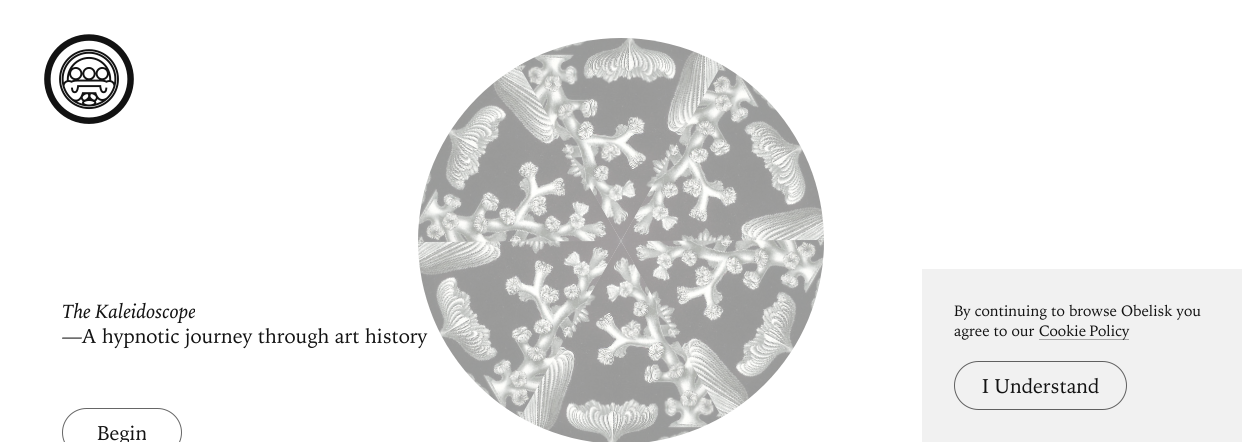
#include <cairo.h>
#include <math.h>
#include <stddef.h>

static cairo_t *c;
static void C(unsigned color){cairo_set_source_rgb(c, (color >> 16) / 255.0, (color >> 8 & 255) / 255.0, (color & 255) / 255.0);}
static void F(const char *family, double size, int italic, int bold){cairo_select_font_face(c, family, italic ? CAIRO_FONT_SLANT_ITALIC : CAIRO_FONT_SLANT_NORMAL,bold ? CAIRO_FONT_WEIGHT_BOLD : CAIRO_FONT_WEIGHT_NORMAL);cairo_set_font_size(c, size);}
static void T(double x, double y, const char *s){cairo_move_to(c, x, y);cairo_show_text(c, s);}
static void L(double x, double y, const char *s, double letter, double word){cairo_move_to(c, x, y);while (*s) {char ch[5] = {0};int n = 0;do ch[n++] = *s++; while ((*s & 0xC0) == 0x80);cairo_show_text(c, ch);cairo_rel_move_to(c, letter + word * (*ch == ' '), 0);}}
static void R(double x, double y, double w, double h){cairo_rectangle(c, x, y, w, h);cairo_fill(c);}
static void Q(double x, double y, double w, double h, double r){cairo_new_sub_path(c);cairo_arc(c, x + w - r, y + h - r, r, 0, M_PI / 2);cairo_arc(c, x + r, y + h - r, r, M_PI / 2, M_PI);cairo_arc(c, x + r, y + r, r, M_PI, 1.5 * M_PI);cairo_arc(c, x + w - r, y + r, r, 1.5 * M_PI, 2 * M_PI);cairo_close_path(c);}
static void I(const char *path, double x, double y, double w, double h){cairo_surface_t *image = cairo_image_surface_create_from_png(path);cairo_save(c);cairo_set_source_surface(c, image, x, y);cairo_rectangle(c, x, y, w, h);cairo_fill(c);cairo_restore(c);cairo_surface_destroy(image);}
int main(void) {
cairo_surface_t *surface = cairo_image_surface_create(CAIRO_FORMAT_RGB24, 1242, 442);
c = cairo_create(surface);
cairo_font_options_t *options = cairo_font_options_create();
cairo_font_options_set_hint_metrics(options, CAIRO_HINT_METRICS_OFF);
cairo_font_options_set_hint_style(options, CAIRO_HINT_STYLE_NONE);
cairo_set_font_options(c, options);
cairo_set_miter_limit(c, 4);
C(0xffffff);
cairo_paint(c);
I("1.png",44,34,90,90);
F("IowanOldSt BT",20,1,0);
C(0x121212);
T(62,318,"The Kaleidoscope");
I("7.png",518,241,206,201);
I("5.png",418,241,203,176);
F("IowanOldSt BT",20,0,0);
T(62,343,"—A hypnotic journey through art history");
Q(62.5,408.5,119,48,24);
C(0x666666);
cairo_set_line_width(c,1);
cairo_stroke(c);
C(0x121212);
T(97,440,"Begin");
I("3.png",418,64,203,178);
I("2.png",518,38,206,203);
I("4.png",621,65,203,176);
I("6.png",621,240,203,177);
C(0xf1f1f1);
R(922,269,320,173);
F("IowanOldSt BT",15,0,0);
C(0x121212);
T(954,316,"By continuing to browse Obelisk you");
T(954,336,"agree to our");
C(0xa9a9a9);
R(1039,339,90,1);
C(0x121212);
L(1039,336,"Cookie Policy",0,-1);
Q(954.5,361.5,172,48,24);
C(0x606060);
cairo_stroke(c);
F("IowanOldSt BT",20,0,0);
C(0x121212);
T(982,393,"I Understand");
cairo_surface_write_to_png(surface, "o.png");
cairo_font_options_destroy(options);
cairo_destroy(c);
cairo_surface_destroy(surface);
return 0;
}
